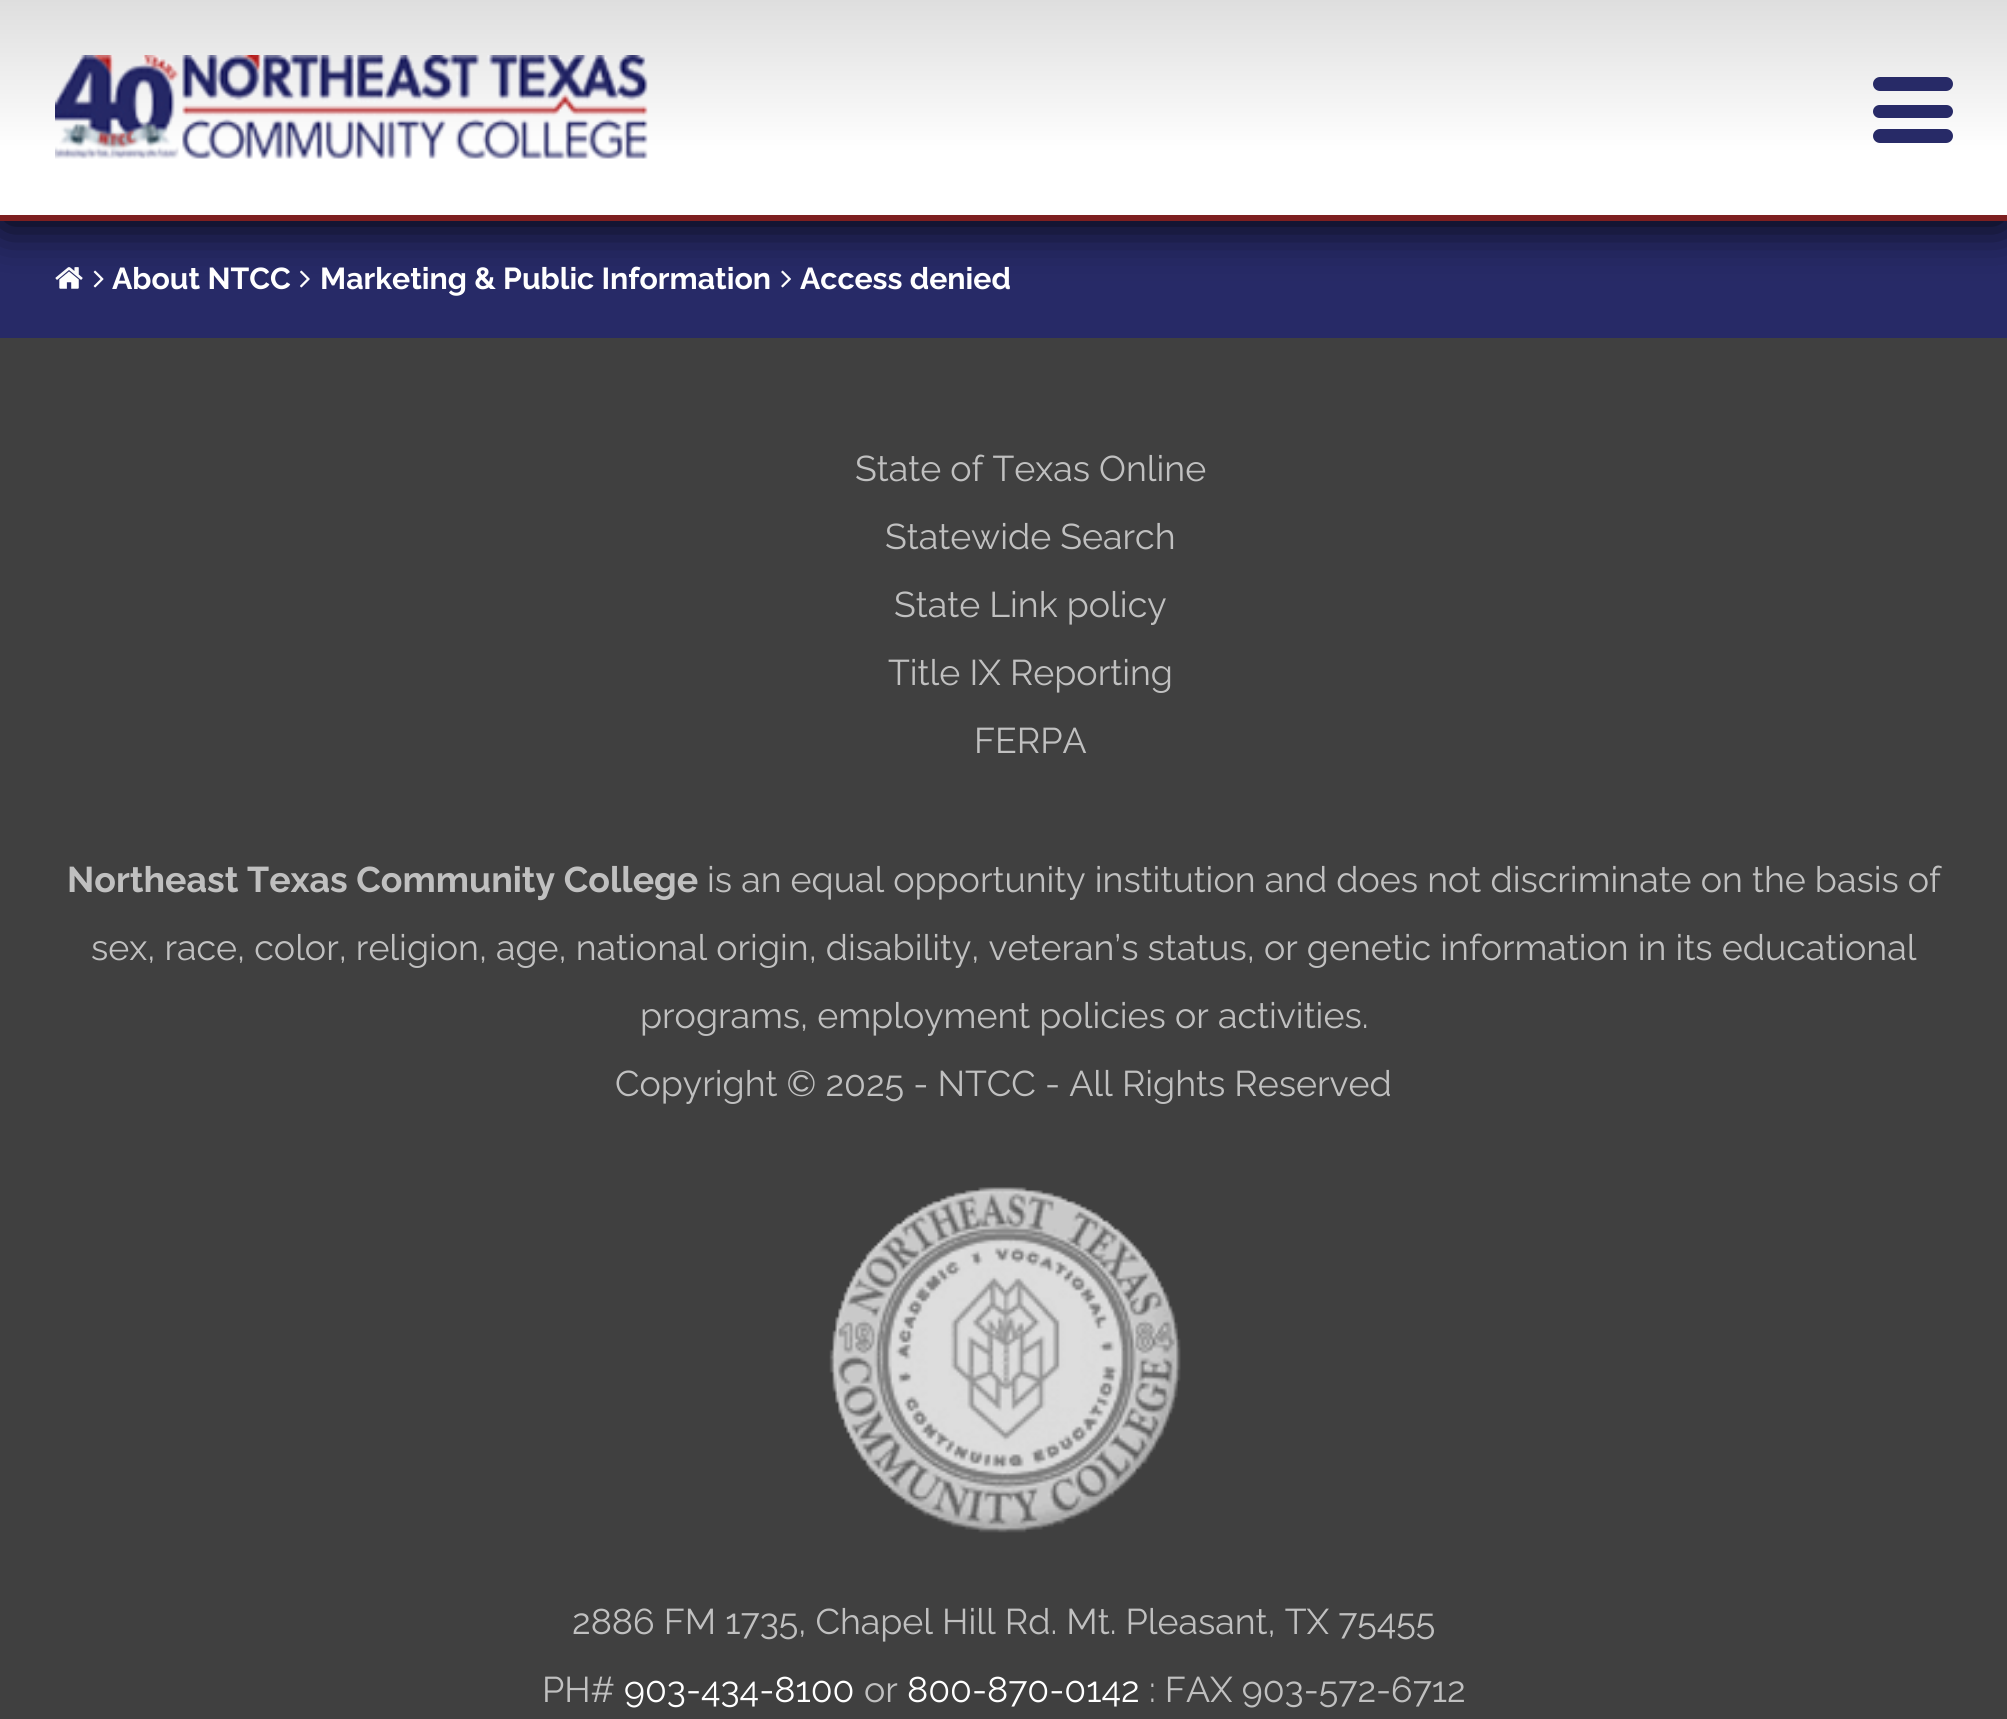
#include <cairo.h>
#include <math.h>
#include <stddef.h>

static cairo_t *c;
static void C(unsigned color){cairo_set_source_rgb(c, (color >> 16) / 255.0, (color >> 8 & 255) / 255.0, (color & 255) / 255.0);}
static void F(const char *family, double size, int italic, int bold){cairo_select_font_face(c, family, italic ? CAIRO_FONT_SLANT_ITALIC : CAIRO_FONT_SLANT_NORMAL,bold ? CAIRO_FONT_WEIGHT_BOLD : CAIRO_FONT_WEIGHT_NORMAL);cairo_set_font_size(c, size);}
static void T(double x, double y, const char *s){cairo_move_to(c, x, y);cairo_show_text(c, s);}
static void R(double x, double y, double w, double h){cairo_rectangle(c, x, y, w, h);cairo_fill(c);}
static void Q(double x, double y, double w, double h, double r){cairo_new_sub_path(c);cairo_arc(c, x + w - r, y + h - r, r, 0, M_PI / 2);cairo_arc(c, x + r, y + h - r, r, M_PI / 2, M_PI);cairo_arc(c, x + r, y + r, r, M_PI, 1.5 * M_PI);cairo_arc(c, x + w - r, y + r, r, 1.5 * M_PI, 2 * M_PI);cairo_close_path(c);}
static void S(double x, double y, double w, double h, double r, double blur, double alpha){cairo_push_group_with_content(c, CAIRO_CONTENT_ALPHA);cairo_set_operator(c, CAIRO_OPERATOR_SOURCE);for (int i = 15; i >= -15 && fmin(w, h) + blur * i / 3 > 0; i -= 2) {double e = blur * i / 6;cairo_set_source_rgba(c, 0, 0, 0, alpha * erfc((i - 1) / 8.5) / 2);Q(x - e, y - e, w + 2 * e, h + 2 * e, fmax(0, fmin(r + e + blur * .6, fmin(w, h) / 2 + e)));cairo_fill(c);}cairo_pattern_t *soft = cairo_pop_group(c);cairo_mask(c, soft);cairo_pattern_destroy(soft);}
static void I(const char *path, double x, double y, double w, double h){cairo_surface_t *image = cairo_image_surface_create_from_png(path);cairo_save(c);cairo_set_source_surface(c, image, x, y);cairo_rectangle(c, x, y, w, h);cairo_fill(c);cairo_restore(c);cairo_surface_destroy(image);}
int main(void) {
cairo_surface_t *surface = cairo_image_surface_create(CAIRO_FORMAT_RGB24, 2007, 1719);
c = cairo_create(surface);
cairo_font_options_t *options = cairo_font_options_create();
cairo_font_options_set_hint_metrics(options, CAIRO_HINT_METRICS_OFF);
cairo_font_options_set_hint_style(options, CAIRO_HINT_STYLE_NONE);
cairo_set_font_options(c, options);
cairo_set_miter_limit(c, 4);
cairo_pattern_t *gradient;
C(0x404040);
cairo_paint(c);
C(0x272a67);
R(0,221,2007,117);
I("2.png",55,267,28,22);
I("3.png",93,270,11,18);
I("4.png",300,270,10,18);
I("5.png",781,270,10,18);
C(0x000000);
S(3,11,2002,212,0,23.5,1);
gradient = cairo_pattern_create_linear(1004,0,1004,217);
cairo_pattern_add_color_stop_rgba(gradient,0,0.871,0.871,0.871,1);
cairo_pattern_add_color_stop_rgba(gradient,.7,1,1,1,1);
cairo_set_source(c,gradient);
cairo_pattern_destroy(gradient);
R(0,0,2007,215);
I("1.png",55,55,593,104);
C(0x272a67);
Q(1873,77,80,14,7);
cairo_fill(c);
Q(1873,105,80,13,6.5);
cairo_fill(c);
Q(1873,129,80,14,7);
cairo_fill(c);
C(0x7d1f20);
R(0,215,2007,6);
F("Raleway",30.25,0,1);
C(0xffffff);
T(112,289,"About NTCC");
T(320,289,"Marketing & Public Information");
T(800,289,"Access denied");
F("Raleway",35.75,0,0);
C(0xc0c0c0);
T(855,481,"State of Texas Online");
T(885,549,"Statewide Search");
T(894,617,"State Link policy");
T(888,685,"Title IX Reporting");
T(974,753,"FERPA");
F("Raleway",35.75,0,1);
T(67,892,"Northeast Texas Community College");
F("Raleway",35.75,0,0);
T(707,892,"is an equal opportunity institution and does not discriminate on the basis of");
T(91,960,"sex, race, color, religion, age, national origin, disability, veteran’s status, or genetic information in its educational");
T(640,1028,"programs, employment policies or activities.");
T(615,1096,"Copyright © 2025 - NTCC - All Rights Reserved");
I("6.png",829,1187,352,346);
T(572,1634,"2886 FM 1735, Chapel Hill Rd. Mt. Pleasant, TX 75455");
T(542,1702,"PH#");
C(0xffffff);
T(624,1702,"903-434-8100");
C(0xc0c0c0);
T(864,1702,"or");
C(0xffffff);
T(907,1702,"800-870-0142");
C(0xc0c0c0);
T(1149,1702,": FAX 903-572-6712");
cairo_surface_write_to_png(surface, "o.png");
cairo_font_options_destroy(options);
cairo_destroy(c);
cairo_surface_destroy(surface);
return 0;
}
